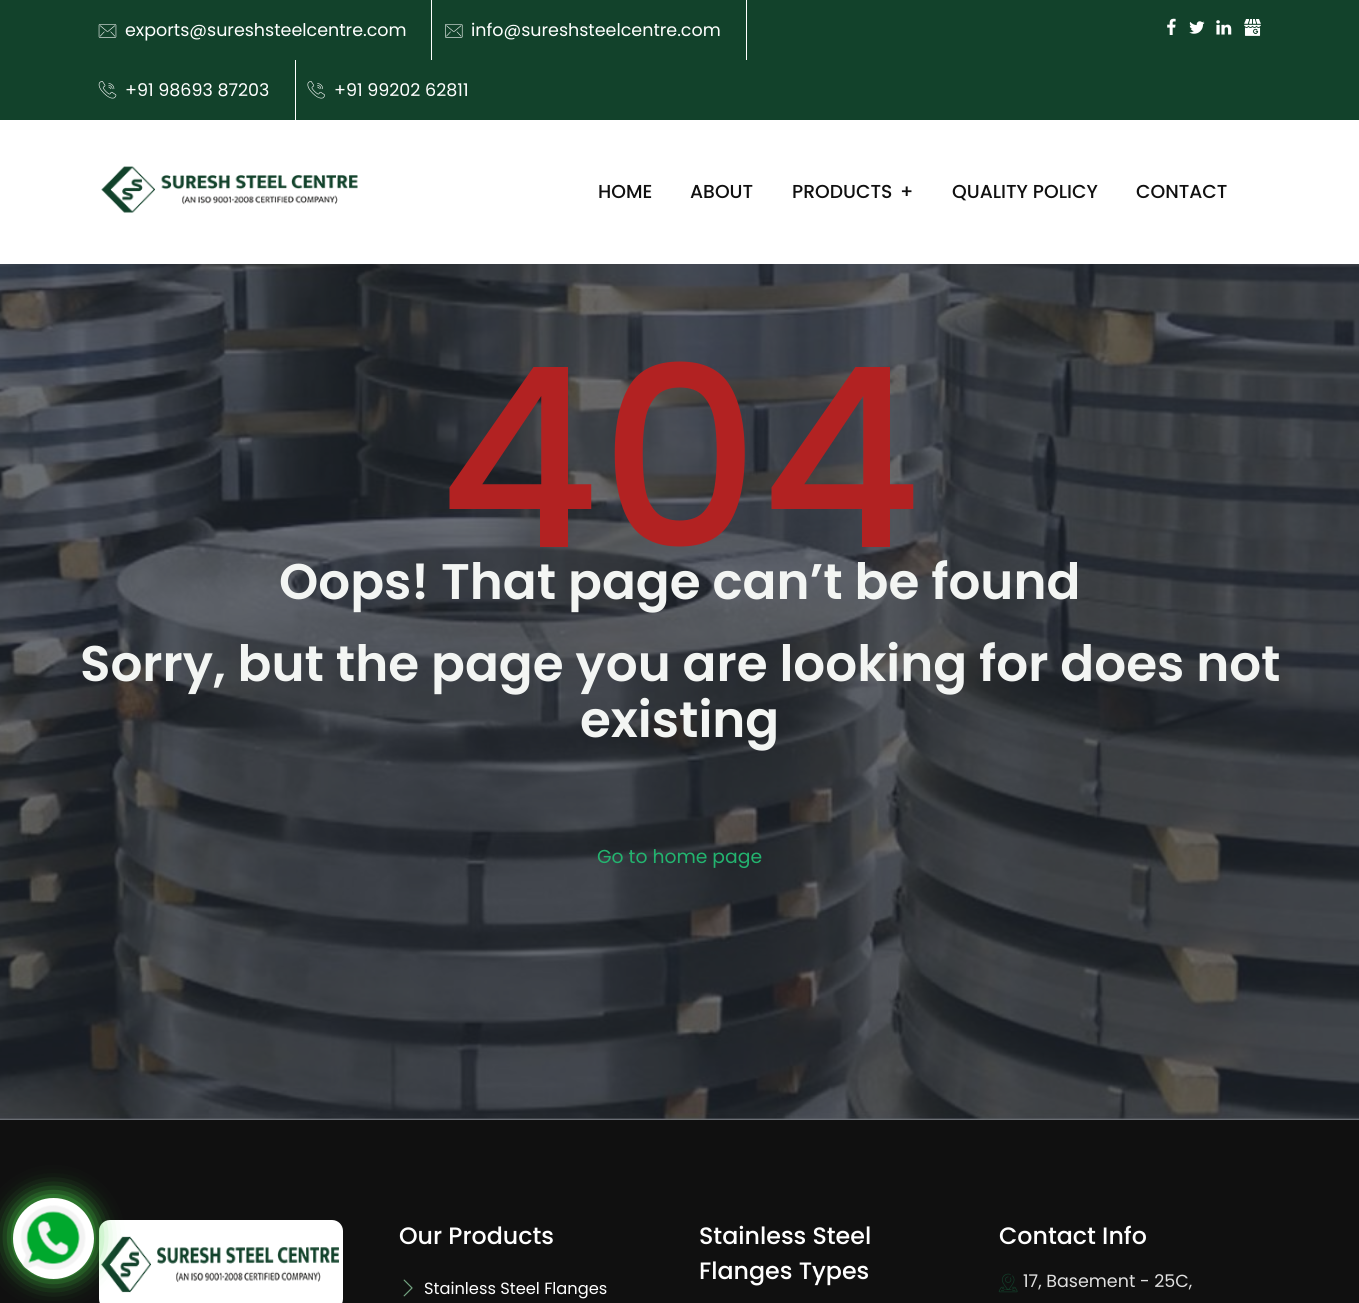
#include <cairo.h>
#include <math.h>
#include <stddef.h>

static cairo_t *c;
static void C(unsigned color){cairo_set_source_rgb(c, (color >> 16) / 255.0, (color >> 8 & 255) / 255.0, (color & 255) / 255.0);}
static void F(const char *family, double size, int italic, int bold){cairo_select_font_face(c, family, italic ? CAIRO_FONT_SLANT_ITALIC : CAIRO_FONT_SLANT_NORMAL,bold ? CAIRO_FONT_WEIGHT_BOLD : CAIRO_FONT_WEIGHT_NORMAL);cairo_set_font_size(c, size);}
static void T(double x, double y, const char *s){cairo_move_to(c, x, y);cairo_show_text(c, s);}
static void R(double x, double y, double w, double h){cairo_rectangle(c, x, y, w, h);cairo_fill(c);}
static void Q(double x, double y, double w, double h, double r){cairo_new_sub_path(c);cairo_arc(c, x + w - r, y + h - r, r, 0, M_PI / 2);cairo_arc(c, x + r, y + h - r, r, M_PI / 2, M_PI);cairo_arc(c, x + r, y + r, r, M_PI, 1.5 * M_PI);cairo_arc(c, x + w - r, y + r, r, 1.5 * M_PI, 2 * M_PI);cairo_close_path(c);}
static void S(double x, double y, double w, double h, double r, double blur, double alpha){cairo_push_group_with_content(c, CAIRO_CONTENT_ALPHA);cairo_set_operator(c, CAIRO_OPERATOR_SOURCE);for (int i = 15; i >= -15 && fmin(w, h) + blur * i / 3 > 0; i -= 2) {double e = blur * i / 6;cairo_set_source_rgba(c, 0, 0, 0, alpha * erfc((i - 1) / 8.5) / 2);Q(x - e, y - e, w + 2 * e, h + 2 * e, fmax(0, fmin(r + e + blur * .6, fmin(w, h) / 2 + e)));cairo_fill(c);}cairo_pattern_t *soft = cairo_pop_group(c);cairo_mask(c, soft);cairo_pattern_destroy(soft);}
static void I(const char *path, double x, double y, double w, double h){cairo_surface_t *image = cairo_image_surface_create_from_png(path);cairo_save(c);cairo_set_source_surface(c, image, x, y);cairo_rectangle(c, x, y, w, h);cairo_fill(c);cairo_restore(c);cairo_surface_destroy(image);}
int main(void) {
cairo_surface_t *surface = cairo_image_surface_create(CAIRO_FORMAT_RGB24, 1359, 1303);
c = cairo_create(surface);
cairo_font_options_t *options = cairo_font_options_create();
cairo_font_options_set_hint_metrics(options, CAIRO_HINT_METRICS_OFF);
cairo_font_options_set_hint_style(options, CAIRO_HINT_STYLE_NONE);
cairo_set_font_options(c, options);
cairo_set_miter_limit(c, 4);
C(0x12422b);
cairo_paint(c);
C(0xffffff);
R(431,0,1,60);
I("1.png",98,24,19,14);
F("Poppins",17.5,0,0);
T(125,36,"exports@sureshsteelcentre.com");
R(746,0,1,60);
I("2.png",445,24,18,14);
T(471,36,"info@sureshsteelcentre.com");
R(295,60,1,60);
I("3.png",98,81,19,18);
T(125,96,"+91 98693 87203");
I("4.png",307,81,18,18);
T(334,96,"+91 99202 62811");
I("5.png",1167,18,9,17);
I("6.png",1189,21,16,13);
I("7.png",1216,20,16,15);
I("8.png",1244,19,17,17);
R(0,120,1359,144);
I("9.png",101,166,257,47);
F("Poppins Medium",18.75,0,0);
C(0x101010);
T(598,198,"HOME");
T(690,198,"ABOUT");
T(792,198,"PRODUCTS");
T(900,198,"+");
T(952,198,"QUALITY POLICY");
T(1136,198,"CONTACT");
I("10.png",0,264,1359,856);
F("Poppins Medium",250,0,0);
C(0xb22222);
T(438,547,"404");
F("Poppins SemiBold",50,0,0);
C(0xf3f5f3);
T(279,599,"Oops! That page can’t be found");
T(80,681,"Sorry, but the page you are looking for does not");
T(580,737,"existing");
F("Poppins",18.75,0,0);
C(0x23b46f);
T(597,863,"Go to home page");
C(0x101010);
R(0,1120,1359,183);
C(0xffffff);
Q(99,1220,244,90,11);
cairo_fill(c);
I("12.png",101,1236,238,57);
C(0x49d849);
S(13,1196,81,82,40.5,12.5,1);
C(0xffffff);
cairo_arc(c,53.5,1238.5,40.5,0,2 * M_PI);
cairo_fill(c);
I("11.png",20,1205,66,65);
F("Poppins Medium",23.75,0,0);
T(399,1244,"Our Products");
I("13.png",403,1279,10,18);
F("Poppins",16.25,0,0);
T(424,1294,"Stainless Steel Flanges");
F("Poppins Medium",23.75,0,0);
T(699,1244,"Stainless Steel");
T(699,1279,"Flanges Types");
T(999,1244,"Contact Info");
I("14.png",998,1273,20,20);
F("Poppins",17.5,0,0);
C(0xe0e0e0);
T(1023,1287,"17, Basement - 25C,");
cairo_surface_write_to_png(surface, "o.png");
cairo_font_options_destroy(options);
cairo_destroy(c);
cairo_surface_destroy(surface);
return 0;
}
